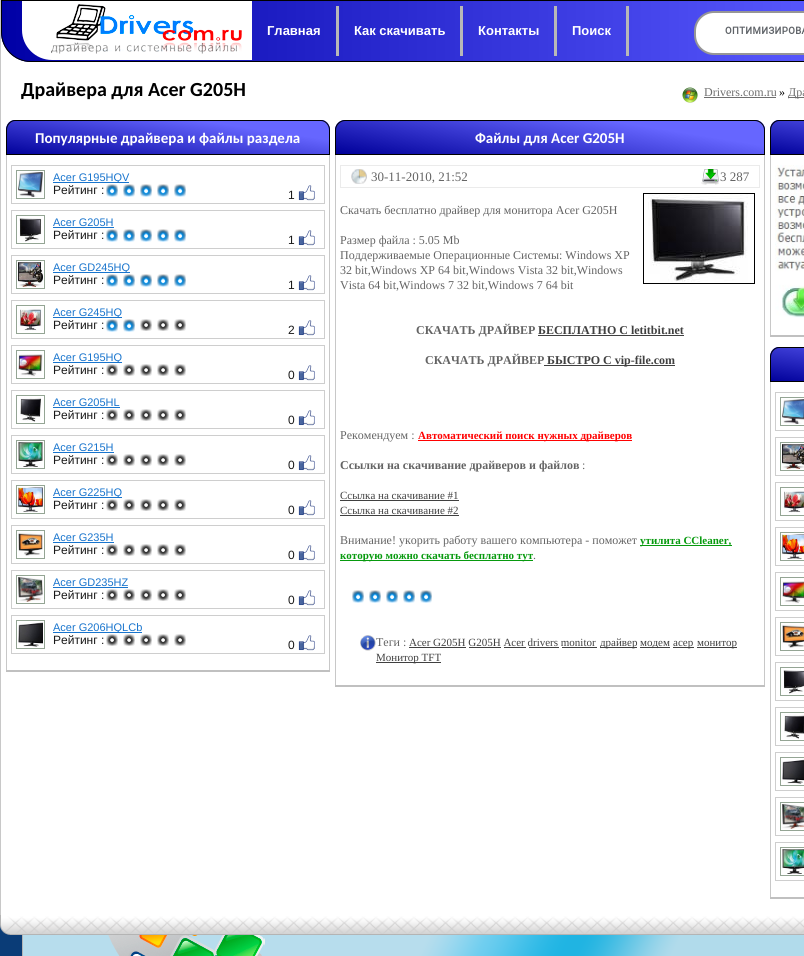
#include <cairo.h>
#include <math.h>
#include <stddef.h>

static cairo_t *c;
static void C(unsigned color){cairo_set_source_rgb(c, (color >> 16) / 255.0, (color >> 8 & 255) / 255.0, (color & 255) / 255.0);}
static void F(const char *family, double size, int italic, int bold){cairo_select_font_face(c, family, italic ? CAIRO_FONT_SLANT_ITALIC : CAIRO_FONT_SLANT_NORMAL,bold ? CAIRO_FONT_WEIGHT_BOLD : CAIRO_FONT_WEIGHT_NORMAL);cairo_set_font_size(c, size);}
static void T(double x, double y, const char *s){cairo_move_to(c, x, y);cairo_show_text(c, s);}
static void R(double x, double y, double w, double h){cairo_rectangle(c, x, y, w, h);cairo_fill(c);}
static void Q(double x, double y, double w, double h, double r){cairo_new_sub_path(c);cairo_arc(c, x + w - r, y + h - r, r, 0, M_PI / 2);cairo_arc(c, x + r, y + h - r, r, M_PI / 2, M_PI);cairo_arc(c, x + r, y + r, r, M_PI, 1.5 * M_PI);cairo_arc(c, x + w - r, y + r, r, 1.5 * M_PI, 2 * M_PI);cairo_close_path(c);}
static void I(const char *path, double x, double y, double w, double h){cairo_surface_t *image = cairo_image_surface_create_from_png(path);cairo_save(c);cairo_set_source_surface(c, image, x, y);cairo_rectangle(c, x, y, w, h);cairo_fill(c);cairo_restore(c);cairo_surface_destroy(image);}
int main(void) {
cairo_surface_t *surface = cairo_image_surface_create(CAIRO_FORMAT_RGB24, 804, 956);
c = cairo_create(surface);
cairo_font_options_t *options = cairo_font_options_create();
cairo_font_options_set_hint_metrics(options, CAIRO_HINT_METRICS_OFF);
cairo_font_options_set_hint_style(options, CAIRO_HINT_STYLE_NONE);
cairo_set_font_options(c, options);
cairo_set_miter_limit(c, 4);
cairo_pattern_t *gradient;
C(0x0a3c77);
cairo_paint(c);
C(0xffffff);
R(1,32,803,883);
C(0xc8c8c8);
R(0,0,1,915);
C(0x0000ff);
cairo_new_path(c);
cairo_move_to(c,1,0);
cairo_line_to(c,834,0);
cairo_line_to(c,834,32);
cairo_curve_to(c,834,48.5,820.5,62,804,62);
cairo_line_to(c,31,62);
cairo_curve_to(c,14.5,62,1,48.5,1,32);
cairo_close_path(c);
cairo_fill(c);
cairo_save(c);
cairo_new_path(c);
cairo_move_to(c,1,0);
cairo_line_to(c,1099,0);
cairo_line_to(c,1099,32);
cairo_curve_to(c,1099,48.5,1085.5,62,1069,62);
cairo_line_to(c,31,62);
cairo_curve_to(c,14.5,62,1,48.5,1,32);
cairo_close_path(c);
cairo_clip(c);
gradient = cairo_pattern_create_linear(2,31,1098,31);
cairo_pattern_add_color_stop_rgba(gradient,0,0,0,0,.35);
cairo_pattern_add_color_stop_rgba(gradient,.76,1,1,1,.35);
cairo_set_source(c,gradient);
cairo_pattern_destroy(gradient);
R(2,1,802,61);
cairo_restore(c);
cairo_new_path(c);
cairo_move_to(c,1.5,.5);
cairo_line_to(c,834.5,.5);
cairo_line_to(c,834.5,32);
cairo_curve_to(c,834.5,48.5,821.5,61.5,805,61.5);
cairo_line_to(c,31,61.5);
cairo_curve_to(c,14.5,61.5,1.5,48.5,1.5,32);
cairo_close_path(c);
C(0x000000);
cairo_set_line_width(c,1);
cairo_stroke(c);
C(0xffffff);
cairo_new_path(c);
cairo_move_to(c,22,1);
cairo_line_to(c,252,1);
cairo_line_to(c,252,60);
cairo_line_to(c,52,60);
cairo_curve_to(c,35.5,60,22,46.5,22,30);
cairo_close_path(c);
cairo_fill(c);
I("1.png",51,4,191,50);
F("Liberation Sans",13,0,1);
T(267,35,"Главная");
C(0xb8b8b8);
R(336,6,3,50);
C(0xffffff);
T(354,35,"Как скачивать");
C(0xb8b8b8);
R(460,6,3,50);
C(0xffffff);
T(478,35,"Контакты");
C(0xb8b8b8);
R(554,6,3,50);
C(0xffffff);
T(572,35,"Поиск");
C(0xb8b8b8);
R(626,6,3,50);
C(0xffffff);
Q(695,12,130,42,19);
cairo_fill_preserve(c);
C(0x969696);
cairo_set_line_width(c,2);
cairo_stroke(c);
I("2.png",725,26,79,8);
F("Carlito",20,0,1);
C(0x000000);
T(21,96,"Драйвера для Acer G205H");
I("3.png",682,87,16,16);
F("Liberation Serif",12,0,0);
C(0x6e6e6e);
T(704,96,"Drivers.com.ru");
R(704,97,72,1);
C(0x000000);
T(779,96,"»");
C(0x6e6e6e);
R(788,97,16,1);
T(788,96,"Дра");
C(0x0000ff);
cairo_new_path(c);
cairo_move_to(c,15,120);
cairo_line_to(c,321,120);
cairo_curve_to(c,326,120,330,124,330,130);
cairo_line_to(c,330,155);
cairo_line_to(c,6,155);
cairo_line_to(c,6,130);
cairo_curve_to(c,6,124,10,120,15,120);
cairo_close_path(c);
cairo_fill(c);
gradient = cairo_pattern_create_linear(162,178,174,97);
cairo_pattern_add_color_stop_rgba(gradient,0,0,0,0,.4);
cairo_pattern_add_color_stop_rgba(gradient,.76,1,1,1,.4);
cairo_set_source(c,gradient);
cairo_pattern_destroy(gradient);
cairo_new_path(c);
cairo_move_to(c,7,125);
cairo_curve_to(c,8,123,9,122,11,121);
cairo_line_to(c,325,121);
cairo_curve_to(c,327,122,328,123,329,125);
cairo_line_to(c,329,154);
cairo_line_to(c,7,154);
cairo_close_path(c);
cairo_fill(c);
cairo_new_path(c);
cairo_move_to(c,15,120.5);
cairo_line_to(c,321,120.5);
cairo_curve_to(c,325.5,120.5,329.5,125,329.5,130);
cairo_line_to(c,329.5,154.5);
cairo_line_to(c,6.5,154.5);
cairo_line_to(c,6.5,130);
cairo_curve_to(c,6.5,125,10.5,120.5,15,120.5);
cairo_close_path(c);
C(0x000000);
cairo_set_line_width(c,1);
cairo_stroke(c);
F("Carlito",15,0,1);
C(0xffffff);
T(35,143,"Популярные драйвера и файлы раздела");
C(0xc8c8c8);
R(329,155,1,515);
R(6,155,1,515);
cairo_rectangle(c,11.5,165.5,313,38);
C(0xcecece);
cairo_stroke(c);
cairo_rectangle(c,16.5,170.5,28,28);
C(0x94a594);
cairo_stroke(c);
I("4.png",18,172,25,25);
C(0x1874cd);
R(53,182,76,1);
F("Liberation Sans",11,0,0);
T(53,181,"Acer G195HQV");
F("Liberation Sans",12,0,0);
C(0x181818);
T(53,194,"Рейтинг :");
I("5.png",106,184,80,12);
I("6.png",106,185,80,12);
T(288,199,"1");
I("7.png",298,185,17,16);
cairo_rectangle(c,11.5,210.5,313,38);
C(0xcecece);
cairo_stroke(c);
cairo_rectangle(c,16.5,215.5,28,28);
C(0x94a594);
cairo_stroke(c);
I("8.png",19,218,23,24);
F("Liberation Sans",11,0,0);
C(0x1874cd);
T(53,226,"Acer G205H");
R(53,227,61,1);
F("Liberation Sans",12,0,0);
C(0x181818);
T(53,239,"Рейтинг :");
I("5.png",106,229,80,12);
I("6.png",106,230,80,12);
T(288,244,"1");
I("7.png",298,230,17,16);
cairo_rectangle(c,11.5,255.5,313,38);
C(0xcecece);
cairo_stroke(c);
cairo_rectangle(c,16.5,260.5,28,28);
C(0x94a594);
cairo_stroke(c);
I("9.png",18,262,25,25);
C(0x1874cd);
R(53,272,77,1);
F("Liberation Sans",11,0,0);
T(53,271,"Acer GD245HQ");
F("Liberation Sans",12,0,0);
C(0x181818);
T(53,284,"Рейтинг :");
I("5.png",106,274,80,12);
I("6.png",106,275,80,12);
T(288,289,"1");
I("7.png",298,275,17,16);
cairo_rectangle(c,11.5,300.5,313,38);
C(0xcecece);
cairo_stroke(c);
cairo_rectangle(c,16.5,305.5,28,28);
C(0x94a594);
cairo_stroke(c);
I("10.png",18,307,25,24);
C(0x1874cd);
R(53,317,69,1);
F("Liberation Sans",11,0,0);
T(53,316,"Acer G245HQ");
F("Liberation Sans",12,0,0);
C(0x181818);
T(53,329,"Рейтинг :");
I("5.png",106,319,80,12);
I("11.png",106,320,29,12);
T(288,334,"2");
I("7.png",298,320,17,16);
cairo_rectangle(c,11.5,345.5,313,38);
C(0xcecece);
cairo_stroke(c);
cairo_rectangle(c,16.5,350.5,28,28);
C(0x94a594);
cairo_stroke(c);
I("12.png",18,354,25,23);
C(0x1874cd);
R(53,362,69,1);
F("Liberation Sans",11,0,0);
T(53,361,"Acer G195HQ");
F("Liberation Sans",12,0,0);
C(0x181818);
T(53,374,"Рейтинг :");
I("5.png",106,364,80,12);
T(288,379,"0");
I("7.png",298,365,17,16);
cairo_rectangle(c,11.5,390.5,313,38);
C(0xcecece);
cairo_stroke(c);
cairo_rectangle(c,16.5,395.5,28,28);
C(0x94a594);
cairo_stroke(c);
I("13.png",20,397,21,25);
F("Liberation Sans",11,0,0);
C(0x1874cd);
T(53,406,"Acer G205HL");
R(53,407,67,1);
F("Liberation Sans",12,0,0);
C(0x181818);
T(53,419,"Рейтинг :");
I("5.png",106,409,80,12);
T(288,424,"0");
I("7.png",298,410,17,16);
cairo_rectangle(c,11.5,435.5,313,38);
C(0xcecece);
cairo_stroke(c);
cairo_rectangle(c,16.5,440.5,28,28);
C(0x94a594);
cairo_stroke(c);
I("14.png",18,442,25,25);
F("Liberation Sans",11,0,0);
C(0x1874cd);
T(53,451,"Acer G215H");
R(53,452,61,1);
F("Liberation Sans",12,0,0);
C(0x181818);
T(53,464,"Рейтинг :");
I("5.png",106,454,80,12);
T(288,469,"0");
I("7.png",298,455,17,16);
cairo_rectangle(c,11.5,480.5,313,38);
C(0xcecece);
cairo_stroke(c);
cairo_rectangle(c,16.5,485.5,28,28);
C(0x94a594);
cairo_stroke(c);
I("15.png",18,487,25,25);
C(0x1874cd);
R(53,497,69,1);
F("Liberation Sans",11,0,0);
T(53,496,"Acer G225HQ");
F("Liberation Sans",12,0,0);
C(0x181818);
T(53,509,"Рейтинг :");
I("5.png",106,499,80,12);
T(288,514,"0");
I("7.png",298,500,17,16);
cairo_rectangle(c,11.5,525.5,313,38);
C(0xcecece);
cairo_stroke(c);
cairo_rectangle(c,16.5,530.5,28,28);
C(0x94a594);
cairo_stroke(c);
I("16.png",18,532,25,24);
F("Liberation Sans",11,0,0);
C(0x1874cd);
T(53,541,"Acer G235H");
R(53,542,61,1);
F("Liberation Sans",12,0,0);
C(0x181818);
T(53,554,"Рейтинг :");
I("5.png",106,544,80,12);
T(288,559,"0");
I("7.png",298,545,17,16);
cairo_rectangle(c,11.5,570.5,313,38);
C(0xcecece);
cairo_stroke(c);
cairo_rectangle(c,16.5,575.5,28,28);
C(0x94a594);
cairo_stroke(c);
I("17.png",18,577,25,25);
F("Liberation Sans",11,0,0);
C(0x1874cd);
T(53,586,"Acer GD235HZ");
R(53,587,75,1);
F("Liberation Sans",12,0,0);
C(0x181818);
T(53,599,"Рейтинг :");
I("5.png",106,589,80,12);
T(288,604,"0");
I("7.png",298,590,17,16);
cairo_rectangle(c,11.5,615.5,313,38);
C(0xcecece);
cairo_stroke(c);
cairo_rectangle(c,16.5,620.5,28,28);
C(0x94a594);
cairo_stroke(c);
I("18.png",18,622,25,25);
C(0x1874cd);
R(53,632,89,1);
F("Liberation Sans",11,0,0);
T(53,631,"Acer G206HQLCb");
F("Liberation Sans",12,0,0);
C(0x181818);
T(53,644,"Рейтинг :");
I("5.png",106,634,80,12);
T(288,649,"0");
I("7.png",298,635,17,16);
C(0xc0c0c0);
R(6,670,324,2);
C(0x0000ff);
cairo_new_path(c);
cairo_move_to(c,345,120);
cairo_line_to(c,755,120);
cairo_curve_to(c,760.5,120,765,124.5,765,130);
cairo_line_to(c,765,155);
cairo_line_to(c,335,155);
cairo_line_to(c,335,130);
cairo_curve_to(c,335,124.5,339.5,120,345,120);
cairo_close_path(c);
cairo_fill(c);
cairo_save(c);
cairo_new_path(c);
cairo_move_to(c,345,120);
cairo_line_to(c,755,120);
cairo_curve_to(c,760.5,120,765,124.5,765,130);
cairo_line_to(c,765,155);
cairo_line_to(c,335,155);
cairo_line_to(c,335,130);
cairo_curve_to(c,335,124.5,339.5,120,345,120);
cairo_close_path(c);
cairo_clip(c);
gradient = cairo_pattern_create_linear(542,187,558,88);
cairo_pattern_add_color_stop_rgba(gradient,0,0,0,0,.4);
cairo_pattern_add_color_stop_rgba(gradient,.76,1,1,1,.4);
cairo_set_source(c,gradient);
cairo_pattern_destroy(gradient);
R(336,121,428,33);
cairo_restore(c);
cairo_new_path(c);
cairo_move_to(c,345,120.5);
cairo_line_to(c,755,120.5);
cairo_curve_to(c,760,120.5,764.5,125,764.5,130);
cairo_line_to(c,764.5,154.5);
cairo_line_to(c,335.5,154.5);
cairo_line_to(c,335.5,130);
cairo_curve_to(c,335.5,125,340,120.5,345,120.5);
cairo_close_path(c);
C(0x000000);
cairo_stroke(c);
F("Carlito",15,0,1);
C(0xffffff);
T(475,143,"Файлы для Acer G205H");
C(0xc8c8c8);
R(764,155,1,530);
R(335,155,1,530);
cairo_rectangle(c,340.5,165.5,419,22);
C(0xebebeb);
cairo_stroke(c);
I("19.png",351,169,16,15);
F("Liberation Serif",13,0,0);
C(0x646464);
T(371,181,"30-11-2010, 21:52");
I("20.png",701,169,18,16);
T(720,181,"3 287");
F("Liberation Serif",12,0,0);
T(340,214,"Скачать бесплатно драйвер для монитора Acer G205H");
cairo_rectangle(c,643.5,193.5,111,90);
C(0x000000);
cairo_stroke(c);
I("21.png",648,194,100,88);
C(0x646464);
T(340,244,"Размер файла : 5.05 Mb");
T(340,259,"Поддерживаемые Операционные Системы: Windows XP");
T(340,274,"32 bit,Windows XP 64 bit,Windows Vista 32 bit,Windows");
T(340,289,"Vista 64 bit,Windows 7 32 bit,Windows 7 64 bit");
F("Liberation Serif",12,0,1);
T(416,334,"СКАЧАТЬ ДРАЙВЕР");
C(0x404040);
T(538,334,"БЕСПЛАТНО С letitbit.net");
R(538,335,146,1);
C(0x646464);
T(425,364,"СКАЧАТЬ ДРАЙВЕР");
C(0x404040);
R(544,365,131,1);
T(547,364,"БЫСТРО С vip-file.com");
F("Liberation Serif",12,0,0);
C(0x646464);
T(340,439,"Рекомендуем :");
C(0xff0101);
R(418,440,214,1);
F("Liberation Serif",11,0,1);
T(418,439,"Автоматический поиск нужных драйверов");
F("Liberation Serif",12,0,1);
C(0x646464);
T(340,469,"Ссылки на скачивание драйверов и файлов");
F("Liberation Serif",12,0,0);
T(582,469,":");
F("Liberation Serif",11,0,0);
C(0x404040);
T(340,499,"Ссылка на скачивание #1");
R(340,500,119,1);
T(340,514,"Ссылка на скачивание #2");
R(340,515,119,1);
F("Liberation Serif",12,0,0);
C(0x646464);
T(340,544,"Внимание! укорить работу вашего компьютера - поможет");
C(0x079a0e);
R(640,545,92,1);
F("Liberation Serif",11,0,1);
T(640,544,"утилита CCleaner,");
R(340,560,193,1);
T(340,559,"которую можно скачать бесплатно тут");
F("Liberation Serif",12,0,0);
C(0x646464);
T(533,559,".");
I("5.png",352,590,80,12);
I("6.png",352,591,80,12);
I("22.png",360,635,16,16);
T(376,646,"Теги :");
F("Liberation Serif",11,0,0);
C(0x404040);
T(409,646,"Acer G205H G205H Acer drivers monitor");
R(409,647,57,1);
R(469,647,32,1);
R(504,647,22,1);
R(529,647,30,1);
R(562,647,35,1);
R(600,647,37,1);
T(600,646,"драйвер");
R(640,647,30,1);
T(640,646,"модем");
R(673,647,21,1);
T(673,646,"асер");
R(697,647,40,1);
T(697,646,"монитор");
R(376,662,65,1);
T(376,661,"Монитор TFT");
C(0xc0c0c0);
R(335,685,430,2);
C(0x0000ff);
cairo_new_path(c);
cairo_move_to(c,779,120);
cairo_line_to(c,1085,120);
cairo_curve_to(c,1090,120,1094,124,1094,130);
cairo_line_to(c,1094,155);
cairo_line_to(c,770,155);
cairo_line_to(c,770,130);
cairo_curve_to(c,770,124,774,120,779,120);
cairo_close_path(c);
cairo_fill(c);
gradient = cairo_pattern_create_linear(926,178,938,97);
cairo_pattern_add_color_stop_rgba(gradient,0,0,0,0,.4);
cairo_pattern_add_color_stop_rgba(gradient,.76,1,1,1,.4);
cairo_set_source(c,gradient);
cairo_pattern_destroy(gradient);
cairo_new_path(c);
cairo_move_to(c,771,125);
cairo_curve_to(c,772,123,773,122,775,121);
cairo_line_to(c,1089,121);
cairo_curve_to(c,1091,122,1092,123,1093,125);
cairo_line_to(c,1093,154);
cairo_line_to(c,771,154);
cairo_close_path(c);
cairo_fill(c);
cairo_new_path(c);
cairo_move_to(c,779,120.5);
cairo_line_to(c,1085,120.5);
cairo_curve_to(c,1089.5,120.5,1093.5,125,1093.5,130);
cairo_line_to(c,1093.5,154.5);
cairo_line_to(c,770.5,154.5);
cairo_line_to(c,770.5,130);
cairo_curve_to(c,770.5,125,774.5,120.5,779,120.5);
cairo_close_path(c);
C(0x000000);
cairo_stroke(c);
C(0xc8c8c8);
R(770,155,1,180);
I("23.png",775,165,29,153);
C(0xc0c0c0);
R(770,335,34,2);
C(0x0000ff);
cairo_new_path(c);
cairo_move_to(c,779,347);
cairo_line_to(c,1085,347);
cairo_curve_to(c,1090,347,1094,351,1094,357);
cairo_line_to(c,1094,382);
cairo_line_to(c,770,382);
cairo_line_to(c,770,357);
cairo_curve_to(c,770,351,774,347,779,347);
cairo_close_path(c);
cairo_fill(c);
gradient = cairo_pattern_create_linear(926,405,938,324);
cairo_pattern_add_color_stop_rgba(gradient,0,0,0,0,.4);
cairo_pattern_add_color_stop_rgba(gradient,.76,1,1,1,.4);
cairo_set_source(c,gradient);
cairo_pattern_destroy(gradient);
cairo_new_path(c);
cairo_move_to(c,771,352);
cairo_curve_to(c,772,350,773,349,775,348);
cairo_line_to(c,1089,348);
cairo_curve_to(c,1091,349,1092,350,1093,352);
cairo_line_to(c,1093,381);
cairo_line_to(c,771,381);
cairo_close_path(c);
cairo_fill(c);
cairo_new_path(c);
cairo_move_to(c,779,347.5);
cairo_line_to(c,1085,347.5);
cairo_curve_to(c,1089.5,347.5,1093.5,352,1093.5,357);
cairo_line_to(c,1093.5,381.5);
cairo_line_to(c,770.5,381.5);
cairo_line_to(c,770.5,357);
cairo_curve_to(c,770.5,352,774.5,347.5,779,347.5);
cairo_close_path(c);
C(0x000000);
cairo_stroke(c);
C(0xc8c8c8);
R(770,382,1,515);
cairo_rectangle(c,775.5,392.5,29,38);
C(0xcecece);
cairo_stroke(c);
cairo_rectangle(c,780.5,397.5,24,28);
C(0x94a594);
cairo_stroke(c);
I("24.png",782,399,22,25);
cairo_rectangle(c,775.5,437.5,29,38);
C(0xcecece);
cairo_stroke(c);
cairo_rectangle(c,780.5,442.5,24,28);
C(0x94a594);
cairo_stroke(c);
I("25.png",782,444,22,25);
cairo_rectangle(c,775.5,482.5,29,38);
C(0xcecece);
cairo_stroke(c);
cairo_rectangle(c,780.5,487.5,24,28);
C(0x94a594);
cairo_stroke(c);
I("26.png",782,489,22,24);
cairo_rectangle(c,775.5,527.5,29,38);
C(0xcecece);
cairo_stroke(c);
cairo_rectangle(c,780.5,532.5,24,28);
C(0x94a594);
cairo_stroke(c);
I("27.png",782,534,22,25);
cairo_rectangle(c,775.5,572.5,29,38);
C(0xcecece);
cairo_stroke(c);
cairo_rectangle(c,780.5,577.5,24,28);
C(0x94a594);
cairo_stroke(c);
I("28.png",782,581,22,23);
cairo_rectangle(c,775.5,617.5,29,38);
C(0xcecece);
cairo_stroke(c);
cairo_rectangle(c,780.5,622.5,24,28);
C(0x94a594);
cairo_stroke(c);
I("29.png",782,624,22,24);
cairo_rectangle(c,775.5,662.5,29,38);
C(0xcecece);
cairo_stroke(c);
cairo_rectangle(c,780.5,667.5,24,28);
C(0x94a594);
cairo_stroke(c);
I("30.png",783,670,21,24);
cairo_rectangle(c,775.5,707.5,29,38);
C(0xcecece);
cairo_stroke(c);
cairo_rectangle(c,780.5,712.5,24,28);
C(0x94a594);
cairo_stroke(c);
I("31.png",784,714,20,25);
cairo_rectangle(c,775.5,752.5,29,38);
C(0xcecece);
cairo_stroke(c);
cairo_rectangle(c,780.5,757.5,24,28);
C(0x94a594);
cairo_stroke(c);
I("32.png",782,759,22,25);
cairo_rectangle(c,775.5,797.5,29,38);
C(0xcecece);
cairo_stroke(c);
cairo_rectangle(c,780.5,802.5,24,28);
C(0x94a594);
cairo_stroke(c);
I("33.png",782,804,22,25);
cairo_rectangle(c,775.5,842.5,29,38);
C(0xcecece);
cairo_stroke(c);
cairo_rectangle(c,780.5,847.5,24,28);
C(0x94a594);
cairo_stroke(c);
I("34.png",782,849,22,25);
C(0xc0c0c0);
R(770,897,34,2);
I("35.png",0,915,804,41);
cairo_surface_write_to_png(surface, "o.png");
cairo_font_options_destroy(options);
cairo_destroy(c);
cairo_surface_destroy(surface);
return 0;
}
